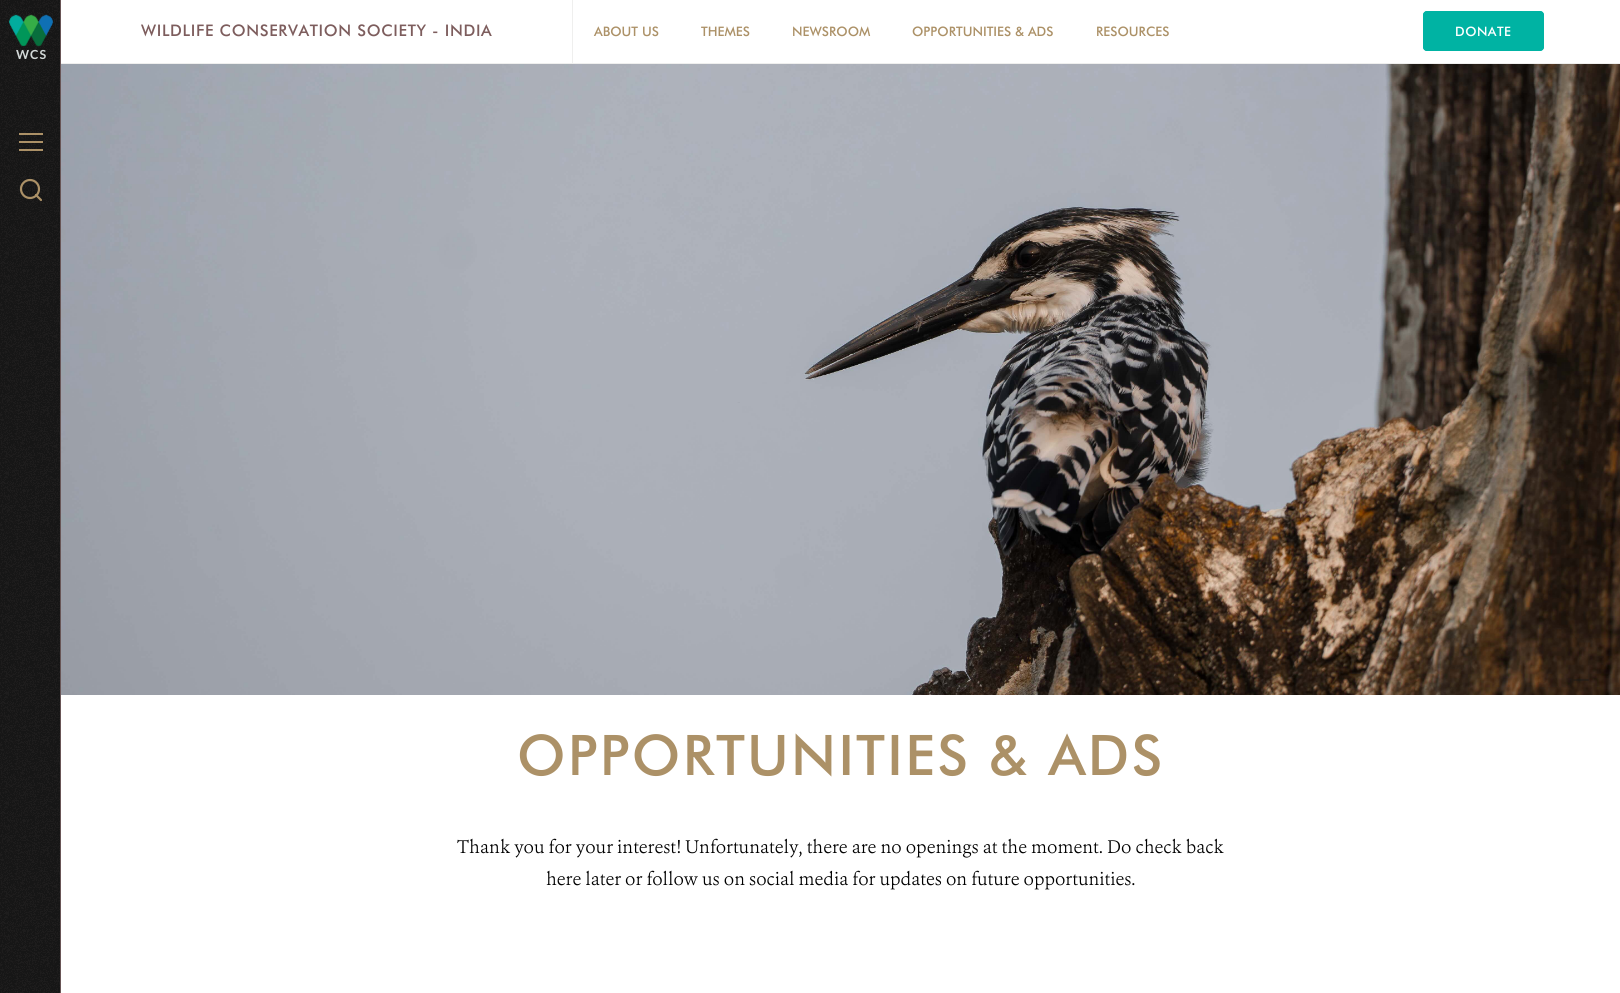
#include <cairo.h>
#include <math.h>
#include <stddef.h>

static cairo_t *c;
static void C(unsigned color){cairo_set_source_rgb(c, (color >> 16) / 255.0, (color >> 8 & 255) / 255.0, (color & 255) / 255.0);}
static void F(const char *family, double size, int italic, int bold){cairo_select_font_face(c, family, italic ? CAIRO_FONT_SLANT_ITALIC : CAIRO_FONT_SLANT_NORMAL,bold ? CAIRO_FONT_WEIGHT_BOLD : CAIRO_FONT_WEIGHT_NORMAL);cairo_set_font_size(c, size);}
static void T(double x, double y, const char *s){cairo_move_to(c, x, y);cairo_show_text(c, s);}
static void L(double x, double y, const char *s, double letter, double word){cairo_move_to(c, x, y);while (*s) {char ch[5] = {0};int n = 0;do ch[n++] = *s++; while ((*s & 0xC0) == 0x80);cairo_show_text(c, ch);cairo_rel_move_to(c, letter + word * (*ch == ' '), 0);}}
static void R(double x, double y, double w, double h){cairo_rectangle(c, x, y, w, h);cairo_fill(c);}
static void Q(double x, double y, double w, double h, double r){cairo_new_sub_path(c);cairo_arc(c, x + w - r, y + h - r, r, 0, M_PI / 2);cairo_arc(c, x + r, y + h - r, r, M_PI / 2, M_PI);cairo_arc(c, x + r, y + r, r, M_PI, 1.5 * M_PI);cairo_arc(c, x + w - r, y + r, r, 1.5 * M_PI, 2 * M_PI);cairo_close_path(c);}
static void I(const char *path, double x, double y, double w, double h){cairo_surface_t *image = cairo_image_surface_create_from_png(path);cairo_save(c);cairo_set_source_surface(c, image, x, y);cairo_rectangle(c, x, y, w, h);cairo_fill(c);cairo_restore(c);cairo_surface_destroy(image);}
int main(void) {
cairo_surface_t *surface = cairo_image_surface_create(CAIRO_FORMAT_RGB24, 1620, 993);
c = cairo_create(surface);
cairo_font_options_t *options = cairo_font_options_create();
cairo_font_options_set_hint_metrics(options, CAIRO_HINT_METRICS_OFF);
cairo_font_options_set_hint_style(options, CAIRO_HINT_STYLE_NONE);
cairo_set_font_options(c, options);
cairo_set_miter_limit(c, 4);
C(0xffffff);
cairo_paint(c);
C(0xefefee);
R(61,63,1559,1);
F("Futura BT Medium",16,0,0);
C(0x7d5d5d);
L(141,36,"WILDLIFE CONSERVATION SOCIETY - INDIA",.65,0);
C(0xefefee);
R(572,0,1,63);
F("Futura BT Medium",13.1,0,0);
C(0xac9167);
T(594,36,"ABOUT US");
T(701,36,"THEMES");
T(792,36,"NEWSROOM");
T(912,36,"OPPORTUNITIES & ADS");
T(1096,36,"RESOURCES");
I("1.png",1423,11,121,40);
C(0x00b3a3);
Q(1423,11,121,40,4);
cairo_fill(c);
F("Futura BT Medium",13,0,0);
C(0xffffff);
L(1455,36,"DONATE",.5,0);
I("2.png",0,0,60,993);
C(0x685556);
R(60,0,1,993);
I("3.png",9,14,44,33);
F("Lato",12.5,0,1);
C(0xd3d9d8);
L(16,59,"WCS",1,0);
C(0xac9167);
R(19,133,24,2);
R(19,141,24,2);
R(19,149,24,2);
cairo_new_path(c);
cairo_arc(c,30,189,9,0,2 * M_PI);
cairo_set_line_width(c,2.2);
cairo_stroke(c);
cairo_new_path(c);
cairo_move_to(c,36,195);
cairo_line_to(c,41,200);
cairo_set_line_cap(c,CAIRO_LINE_CAP_ROUND);
cairo_set_line_join(c,CAIRO_LINE_JOIN_ROUND);
cairo_stroke(c);
I("4.png",61,64,1559,631);
cairo_set_source_rgba(c,0.094,0.102,0.106,0.4);
Q(1573,679,16,2,1);
cairo_fill(c);
F("Futura BT Medium",56,0,0);
C(0xac9167);
L(517,775,"OPPORTUNITIES & ADS",2.25,0);
F("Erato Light",18,0,0);
C(0x000000);
T(457,853,"Thank you for your interest! Unfortunately, there are no openings at the moment. Do check back");
T(546,885,"here later or follow us on social media for updates on future opportunities.");
cairo_surface_write_to_png(surface, "o.png");
cairo_font_options_destroy(options);
cairo_destroy(c);
cairo_surface_destroy(surface);
return 0;
}
